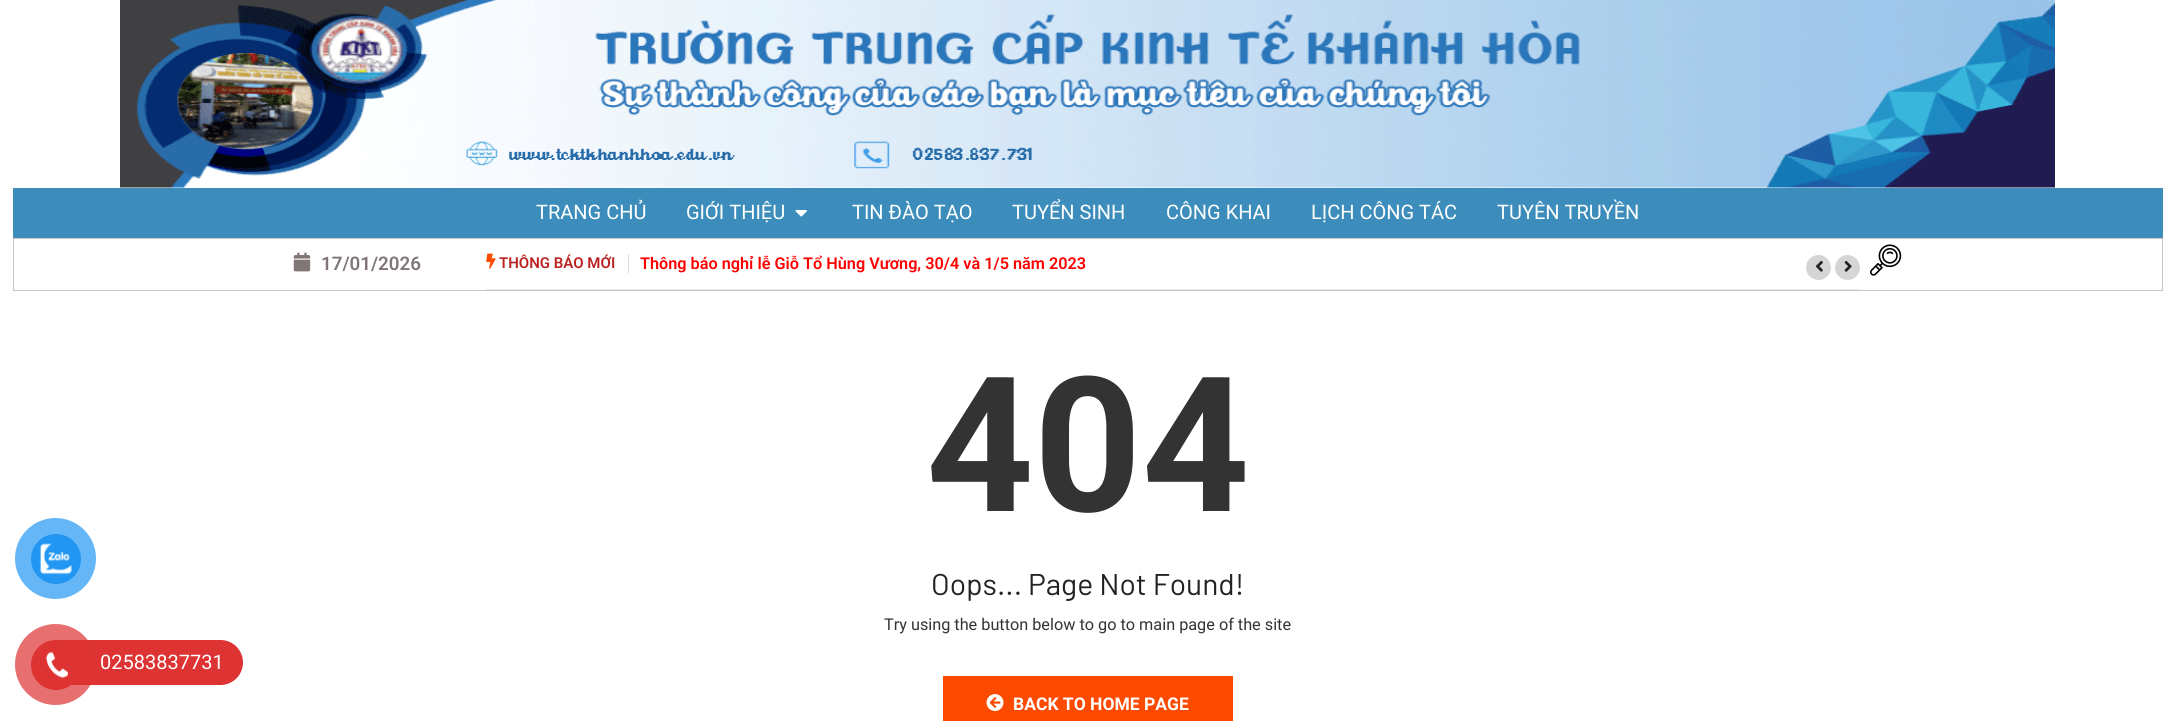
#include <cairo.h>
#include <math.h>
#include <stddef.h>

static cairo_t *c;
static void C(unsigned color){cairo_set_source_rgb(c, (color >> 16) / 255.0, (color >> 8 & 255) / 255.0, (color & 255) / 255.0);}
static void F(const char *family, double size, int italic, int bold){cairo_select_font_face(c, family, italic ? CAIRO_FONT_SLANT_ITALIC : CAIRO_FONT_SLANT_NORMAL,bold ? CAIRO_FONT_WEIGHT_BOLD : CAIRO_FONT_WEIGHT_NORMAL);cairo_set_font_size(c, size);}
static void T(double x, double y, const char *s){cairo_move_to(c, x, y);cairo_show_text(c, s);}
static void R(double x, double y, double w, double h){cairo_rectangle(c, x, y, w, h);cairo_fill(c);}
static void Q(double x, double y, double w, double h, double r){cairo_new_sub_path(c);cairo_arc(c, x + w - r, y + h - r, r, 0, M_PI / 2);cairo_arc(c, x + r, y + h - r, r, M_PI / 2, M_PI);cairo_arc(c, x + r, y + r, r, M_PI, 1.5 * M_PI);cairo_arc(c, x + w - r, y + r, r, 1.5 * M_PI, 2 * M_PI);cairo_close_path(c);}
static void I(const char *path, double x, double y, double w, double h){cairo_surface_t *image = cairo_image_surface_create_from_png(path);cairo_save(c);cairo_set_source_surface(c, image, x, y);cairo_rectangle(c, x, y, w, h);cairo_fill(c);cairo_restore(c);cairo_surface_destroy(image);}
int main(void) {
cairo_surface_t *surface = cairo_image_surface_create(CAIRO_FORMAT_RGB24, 2174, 721);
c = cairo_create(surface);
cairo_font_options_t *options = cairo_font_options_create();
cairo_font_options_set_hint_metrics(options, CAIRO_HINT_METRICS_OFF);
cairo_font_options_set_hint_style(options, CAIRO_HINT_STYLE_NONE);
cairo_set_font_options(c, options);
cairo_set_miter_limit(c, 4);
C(0xffffff);
cairo_paint(c);
I("1.png",120,0,1935,188);
C(0x3c8dbc);
R(13,188,2150,50);
F("Roboto",20,0,0);
C(0xffffff);
T(536,219,"TRANG CHỦ");
T(686,219,"GIỚI THIỆU");
I("2.png",795,210,12,7);
T(852,219,"TIN ĐÀO TẠO");
T(1012,219,"TUYỂN SINH");
T(1166,219,"CÔNG KHAI");
T(1311,219,"LỊCH CÔNG TÁC");
T(1497,219,"TUYÊN TRUYỀN");
cairo_rectangle(c,13.5,238.5,2149,52);
C(0xccc4c4);
cairo_set_line_width(c,1);
cairo_stroke(c);
I("3.png",293,252,18,20);
F("Roboto SemiBold",18.75,0,0);
C(0x807676);
T(321,270,"17/01/2026");
C(0xeaeaea);
R(486,289,1374,1);
C(0xdedbdb);
R(628,254,1,19);
I("4.png",486,253,10,16);
F("Roboto SemiBold",15,0,0);
C(0xbb2222);
T(499,268,"THÔNG BÁO MỚI");
F("Roboto SemiBold",16.25,0,0);
C(0xff0000);
T(640,269,"Thông báo nghỉ lễ Giỗ Tổ Hùng Vương, 30/4 và 1/5 năm 2023");
C(0xd5d5d5);
cairo_new_path(c);
cairo_arc(c,1818.5,267.5,12.5,0,2 * M_PI);
cairo_fill(c);
I("5.png",1815,260,8,12);
cairo_arc(c,1847.5,267.5,12.5,0,2 * M_PI);
cairo_fill(c);
I("6.png",1844,260,8,12);
I("7.png",1870,244,32,32);
C(0x64b6f7);
cairo_arc(c,55.5,558.5,40.5,0,2 * M_PI);
cairo_fill(c);
C(0x2196f3);
cairo_arc(c,56,559,25,0,2 * M_PI);
cairo_fill(c);
I("8.png",39,543,33,32);
C(0xdd3333);
Q(38,640,205,45,22.5);
cairo_fill(c);
cairo_set_source_rgba(c,0.867,0.2,0.2,0.7);
cairo_arc(c,55.5,664.5,40.5,0,2 * M_PI);
cairo_fill(c);
C(0xdd3333);
cairo_arc(c,56,665,25,0,2 * M_PI);
cairo_fill(c);
I("9.png",46,651,22,27);
F("Roboto",20,0,0);
C(0xffffff);
T(100,669,"02583837731");
F("Roboto",188,0,1);
C(0x333333);
T(926,511,"404");
F("Barlow",30,0,0);
C(0x222222);
T(931,595,"Oops... Page Not Found!");
F("Roboto",16.25,0,0);
C(0x333333);
T(884,630,"Try using the button below to go to main page of the site");
C(0xfc4a00);
R(943,676,290,45);
I("10.png",986,694,18,17);
F("Roboto",17.5,0,1);
C(0xffffff);
T(1013,710,"BACK TO HOME PAGE");
cairo_surface_write_to_png(surface, "o.png");
cairo_font_options_destroy(options);
cairo_destroy(c);
cairo_surface_destroy(surface);
return 0;
}
